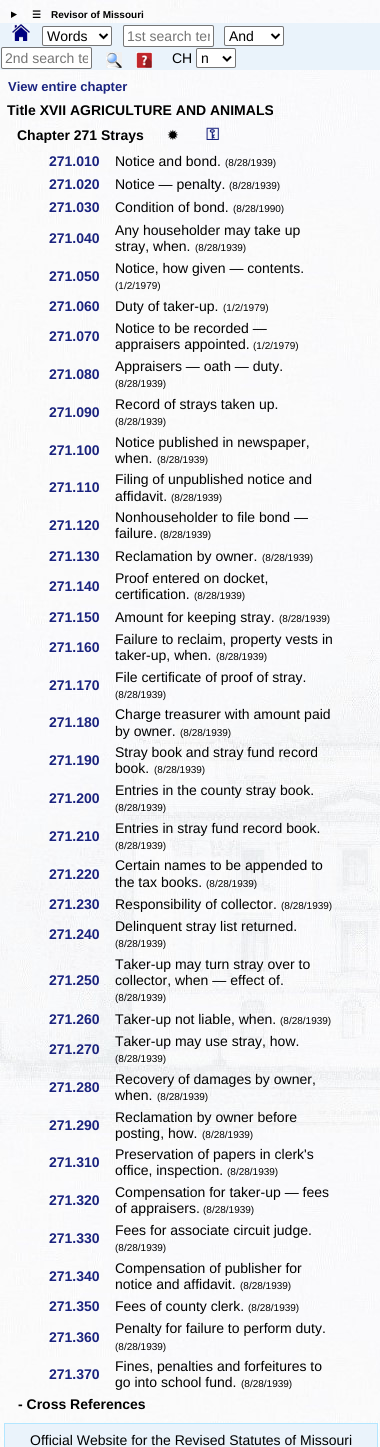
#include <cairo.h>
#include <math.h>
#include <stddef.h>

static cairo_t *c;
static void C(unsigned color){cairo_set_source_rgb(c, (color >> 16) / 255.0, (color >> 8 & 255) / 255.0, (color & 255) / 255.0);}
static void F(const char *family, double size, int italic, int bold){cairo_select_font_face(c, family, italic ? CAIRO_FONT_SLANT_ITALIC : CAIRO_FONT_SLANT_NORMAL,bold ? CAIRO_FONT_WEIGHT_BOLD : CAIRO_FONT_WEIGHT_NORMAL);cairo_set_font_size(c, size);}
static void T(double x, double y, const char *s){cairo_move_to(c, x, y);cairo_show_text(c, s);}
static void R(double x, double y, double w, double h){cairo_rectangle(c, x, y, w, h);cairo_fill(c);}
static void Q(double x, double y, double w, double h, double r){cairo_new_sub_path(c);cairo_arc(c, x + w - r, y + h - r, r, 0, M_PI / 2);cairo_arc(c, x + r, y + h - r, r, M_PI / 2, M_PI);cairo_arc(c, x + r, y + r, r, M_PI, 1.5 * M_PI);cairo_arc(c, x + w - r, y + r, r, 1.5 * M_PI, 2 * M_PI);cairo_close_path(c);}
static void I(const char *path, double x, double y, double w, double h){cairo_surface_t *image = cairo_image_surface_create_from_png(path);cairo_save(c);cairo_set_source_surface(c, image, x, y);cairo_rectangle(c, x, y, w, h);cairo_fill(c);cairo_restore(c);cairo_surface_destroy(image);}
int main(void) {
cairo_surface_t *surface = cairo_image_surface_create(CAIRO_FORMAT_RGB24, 380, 1447);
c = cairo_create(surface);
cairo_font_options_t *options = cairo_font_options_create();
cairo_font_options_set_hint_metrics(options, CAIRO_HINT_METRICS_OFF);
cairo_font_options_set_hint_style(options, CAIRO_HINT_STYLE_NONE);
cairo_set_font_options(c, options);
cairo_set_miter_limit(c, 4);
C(0xffffff);
cairo_paint(c);
I("1.png",0,0,380,1447);
C(0x000000);
cairo_new_path(c);
cairo_move_to(c,11,11.5);
cairo_line_to(c,17,14.5);
cairo_line_to(c,11,18);
cairo_close_path(c);
cairo_fill(c);
F("DejaVu Sans",10,0,1);
T(32,18,"☰");
F("Liberation Sans",10,0,1);
T(51,18,"Revisor of Missouri");
C(0xeaf3fb);
R(0,23,380,47);
I("2.png",12,24,18,17);
C(0xffffff);
Q(42.5,26.5,69,19,1.5);
cairo_fill_preserve(c);
C(0x767676);
cairo_set_line_width(c,1);
cairo_stroke(c);
cairo_new_path(c);
cairo_move_to(c,99.5,34);
cairo_line_to(c,103.5,38);
cairo_line_to(c,107.5,34);
C(0x000000);
cairo_set_line_width(c,2);
cairo_stroke(c);
F("Liberation Sans",14,0,0);
T(47,41,"Words");
C(0xffffff);
Q(123.5,25.5,90,21,1.5);
cairo_fill_preserve(c);
C(0x767676);
cairo_set_line_width(c,1);
cairo_stroke(c);
cairo_save(c);
cairo_rectangle(c,127,28,83,16);
cairo_clip(c);
C(0x757575);
T(127,41,"1st search ter");
cairo_restore(c);
C(0xffffff);
Q(224.5,26.5,59,19,1.5);
cairo_fill_preserve(c);
C(0x767676);
cairo_stroke(c);
cairo_new_path(c);
cairo_move_to(c,271.5,34);
cairo_line_to(c,275.5,38);
cairo_line_to(c,279.5,34);
C(0x000000);
cairo_set_line_width(c,2);
cairo_stroke(c);
T(229,41,"And");
C(0xffffff);
Q(1.5,47.5,90,21,1.5);
cairo_fill_preserve(c);
C(0x767676);
cairo_set_line_width(c,1);
cairo_stroke(c);
cairo_save(c);
cairo_rectangle(c,5,50,83,16);
cairo_clip(c);
C(0x757575);
T(5,63,"2nd search te");
cairo_restore(c);
I("3.png",106,52,16,16);
I("4.png",136,52,16,16);
C(0x000000);
T(172,63,"CH");
C(0xffffff);
Q(196.5,48.5,39,19,1.5);
cairo_fill_preserve(c);
C(0x767676);
cairo_stroke(c);
cairo_new_path(c);
cairo_move_to(c,223,56.5);
cairo_line_to(c,227,60.5);
cairo_line_to(c,231,56.5);
C(0x000000);
cairo_set_line_width(c,2);
cairo_stroke(c);
T(201,63,"n");
F("Liberation Sans",13,0,1);
C(0x1a237e);
T(8,91,"View entire chapter");
F("Liberation Sans",14,0,1);
C(0x000000);
T(7,115,"Title XVII AGRICULTURE AND ANIMALS");
T(17,140,"Chapter 271 Strays");
F("DejaVu Sans",14,0,0);
T(167,140,"✹");
F("FreeSerif",17,0,1);
C(0x1a237e);
T(206,140,"⚿");
F("Liberation Sans",14,0,1);
T(49,166,"271.010");
F("Liberation Sans",14,0,0);
C(0x000000);
T(115,166,"Notice and bond.");
F("Liberation Sans",10,0,0);
T(225,166,"(8/28/1939)");
F("Liberation Sans",14,0,1);
C(0x1a237e);
T(49,189,"271.020");
F("Liberation Sans",14,0,0);
C(0x000000);
T(115,189,"Notice — penalty.");
F("Liberation Sans",10,0,0);
T(229,189,"(8/28/1939)");
F("Liberation Sans",14,0,1);
C(0x1a237e);
T(49,212,"271.030");
F("Liberation Sans",14,0,0);
C(0x000000);
T(115,212,"Condition of bond.");
F("Liberation Sans",10,0,0);
T(233,212,"(8/28/1990)");
F("Liberation Sans",14,0,1);
C(0x1a237e);
T(49,243,"271.040");
F("Liberation Sans",14,0,0);
C(0x000000);
T(115,235,"Any householder may take up");
T(115,251,"stray, when.");
F("Liberation Sans",10,0,0);
T(195,251,"(8/28/1939)");
F("Liberation Sans",14,0,1);
C(0x1a237e);
T(49,281,"271.050");
F("Liberation Sans",14,0,0);
C(0x000000);
T(115,273,"Notice, how given — contents.");
F("Liberation Sans",10,0,0);
T(115,289,"(1/2/1979)");
F("Liberation Sans",14,0,1);
C(0x1a237e);
T(49,311,"271.060");
F("Liberation Sans",14,0,0);
C(0x000000);
T(115,311,"Duty of taker-up.");
F("Liberation Sans",10,0,0);
T(223,311,"(1/2/1979)");
F("Liberation Sans",14,0,1);
C(0x1a237e);
T(49,341,"271.070");
F("Liberation Sans",14,0,0);
C(0x000000);
T(115,333,"Notice to be recorded —");
T(115,349,"appraisers appointed.");
F("Liberation Sans",10,0,0);
T(253,349,"(1/2/1979)");
F("Liberation Sans",14,0,1);
C(0x1a237e);
T(49,379,"271.080");
F("Liberation Sans",14,0,0);
C(0x000000);
T(115,371,"Appraisers — oath — duty.");
F("Liberation Sans",10,0,0);
T(115,387,"(8/28/1939)");
F("Liberation Sans",14,0,1);
C(0x1a237e);
T(49,417,"271.090");
F("Liberation Sans",14,0,0);
C(0x000000);
T(115,409,"Record of strays taken up.");
F("Liberation Sans",10,0,0);
T(115,425,"(8/28/1939)");
F("Liberation Sans",14,0,1);
C(0x1a237e);
T(49,455,"271.100");
F("Liberation Sans",14,0,0);
C(0x000000);
T(115,447,"Notice published in newspaper,");
T(115,463,"when.");
F("Liberation Sans",10,0,0);
T(157,463,"(8/28/1939)");
F("Liberation Sans",14,0,1);
C(0x1a237e);
T(49,492,"271.110");
F("Liberation Sans",14,0,0);
C(0x000000);
T(115,484,"Filing of unpublished notice and");
T(115,501,"affidavit.");
F("Liberation Sans",10,0,0);
T(171,501,"(8/28/1939)");
F("Liberation Sans",14,0,1);
C(0x1a237e);
T(49,530,"271.120");
F("Liberation Sans",14,0,0);
C(0x000000);
T(115,522,"Nonhouseholder to file bond —");
T(115,538,"failure.");
F("Liberation Sans",10,0,0);
T(160,538,"(8/28/1939)");
F("Liberation Sans",14,0,1);
C(0x1a237e);
T(49,561,"271.130");
F("Liberation Sans",14,0,0);
C(0x000000);
T(115,561,"Reclamation by owner.");
F("Liberation Sans",10,0,0);
T(262,561,"(8/28/1939)");
F("Liberation Sans",14,0,1);
C(0x1a237e);
T(49,591,"271.140");
F("Liberation Sans",14,0,0);
C(0x000000);
T(115,583,"Proof entered on docket,");
T(115,599,"certification.");
F("Liberation Sans",10,0,0);
T(194,599,"(8/28/1939)");
F("Liberation Sans",14,0,1);
C(0x1a237e);
T(49,622,"271.150");
F("Liberation Sans",14,0,0);
C(0x000000);
T(115,622,"Amount for keeping stray.");
F("Liberation Sans",10,0,0);
T(279,622,"(8/28/1939)");
F("Liberation Sans",14,0,1);
C(0x1a237e);
T(49,652,"271.160");
F("Liberation Sans",14,0,0);
C(0x000000);
T(115,644,"Failure to reclaim, property vests in");
T(115,660,"taker-up, when.");
F("Liberation Sans",10,0,0);
T(216,660,"(8/28/1939)");
F("Liberation Sans",14,0,1);
C(0x1a237e);
T(49,690,"271.170");
F("Liberation Sans",14,0,0);
C(0x000000);
T(115,682,"File certificate of proof of stray.");
F("Liberation Sans",10,0,0);
T(115,698,"(8/28/1939)");
F("Liberation Sans",14,0,1);
C(0x1a237e);
T(49,727,"271.180");
F("Liberation Sans",14,0,0);
C(0x000000);
T(115,719,"Charge treasurer with amount paid");
T(115,736,"by owner.");
F("Liberation Sans",10,0,0);
T(180,736,"(8/28/1939)");
F("Liberation Sans",14,0,1);
C(0x1a237e);
T(49,765,"271.190");
F("Liberation Sans",14,0,0);
C(0x000000);
T(115,757,"Stray book and stray fund record");
T(115,773,"book.");
F("Liberation Sans",10,0,0);
T(154,773,"(8/28/1939)");
F("Liberation Sans",14,0,1);
C(0x1a237e);
T(49,803,"271.200");
F("Liberation Sans",14,0,0);
C(0x000000);
T(115,795,"Entries in the county stray book.");
F("Liberation Sans",10,0,0);
T(115,811,"(8/28/1939)");
F("Liberation Sans",14,0,1);
C(0x1a237e);
T(49,841,"271.210");
F("Liberation Sans",14,0,0);
C(0x000000);
T(115,833,"Entries in stray fund record book.");
F("Liberation Sans",10,0,0);
T(115,849,"(8/28/1939)");
F("Liberation Sans",14,0,1);
C(0x1a237e);
T(49,879,"271.220");
F("Liberation Sans",14,0,0);
C(0x000000);
T(115,870,"Certain names to be appended to");
T(115,887,"the tax books.");
F("Liberation Sans",10,0,0);
T(206,887,"(8/28/1939)");
F("Liberation Sans",14,0,1);
C(0x1a237e);
T(49,909,"271.230");
F("Liberation Sans",14,0,0);
C(0x000000);
T(115,909,"Responsibility of collector.");
F("Liberation Sans",10,0,0);
T(281,909,"(8/28/1939)");
F("Liberation Sans",14,0,1);
C(0x1a237e);
T(49,939,"271.240");
F("Liberation Sans",14,0,0);
C(0x000000);
T(115,931,"Delinquent stray list returned.");
F("Liberation Sans",10,0,0);
T(115,947,"(8/28/1939)");
F("Liberation Sans",14,0,1);
C(0x1a237e);
T(49,985,"271.250");
F("Liberation Sans",14,0,0);
C(0x000000);
T(115,969,"Taker-up may turn stray over to");
T(115,985,"collector, when — effect of.");
F("Liberation Sans",10,0,0);
T(115,1001,"(8/28/1939)");
F("Liberation Sans",14,0,1);
C(0x1a237e);
T(49,1024,"271.260");
F("Liberation Sans",14,0,0);
C(0x000000);
T(115,1024,"Taker-up not liable, when.");
F("Liberation Sans",10,0,0);
T(280,1024,"(8/28/1939)");
F("Liberation Sans",14,0,1);
C(0x1a237e);
T(49,1054,"271.270");
F("Liberation Sans",14,0,0);
C(0x000000);
T(115,1046,"Taker-up may use stray, how.");
F("Liberation Sans",10,0,0);
T(115,1062,"(8/28/1939)");
F("Liberation Sans",14,0,1);
C(0x1a237e);
T(49,1092,"271.280");
F("Liberation Sans",14,0,0);
C(0x000000);
T(115,1084,"Recovery of damages by owner,");
T(115,1100,"when.");
F("Liberation Sans",10,0,0);
T(157,1100,"(8/28/1939)");
F("Liberation Sans",14,0,1);
C(0x1a237e);
T(49,1130,"271.290");
F("Liberation Sans",14,0,0);
C(0x000000);
T(115,1122,"Reclamation by owner before");
T(115,1138,"posting, how.");
F("Liberation Sans",10,0,0);
T(202,1138,"(8/28/1939)");
F("Liberation Sans",14,0,1);
C(0x1a237e);
T(49,1167,"271.310");
F("Liberation Sans",14,0,0);
C(0x000000);
T(115,1159,"Preservation of papers in clerk's");
T(115,1175,"office, inspection.");
F("Liberation Sans",10,0,0);
T(227,1175,"(8/28/1939)");
F("Liberation Sans",14,0,1);
C(0x1a237e);
T(49,1205,"271.320");
F("Liberation Sans",14,0,0);
C(0x000000);
T(115,1197,"Compensation for taker-up — fees");
T(115,1213,"of appraisers.");
F("Liberation Sans",10,0,0);
T(203,1213,"(8/28/1939)");
F("Liberation Sans",14,0,1);
C(0x1a237e);
T(49,1243,"271.330");
F("Liberation Sans",14,0,0);
C(0x000000);
T(115,1235,"Fees for associate circuit judge.");
F("Liberation Sans",10,0,0);
T(115,1251,"(8/28/1939)");
F("Liberation Sans",14,0,1);
C(0x1a237e);
T(49,1281,"271.340");
F("Liberation Sans",14,0,0);
C(0x000000);
T(115,1273,"Compensation of publisher for");
T(115,1289,"notice and affidavit.");
F("Liberation Sans",10,0,0);
T(240,1289,"(8/28/1939)");
F("Liberation Sans",14,0,1);
C(0x1a237e);
T(49,1311,"271.350");
F("Liberation Sans",14,0,0);
C(0x000000);
T(115,1311,"Fees of county clerk.");
F("Liberation Sans",10,0,0);
T(248,1311,"(8/28/1939)");
F("Liberation Sans",14,0,1);
C(0x1a237e);
T(49,1342,"271.360");
F("Liberation Sans",14,0,0);
C(0x000000);
T(115,1333,"Penalty for failure to perform duty.");
F("Liberation Sans",10,0,0);
T(115,1350,"(8/28/1939)");
F("Liberation Sans",14,0,1);
C(0x1a237e);
T(49,1379,"271.370");
F("Liberation Sans",14,0,0);
C(0x000000);
T(115,1371,"Fines, penalties and forfeitures to");
T(115,1387,"go into school fund.");
F("Liberation Sans",10,0,0);
T(241,1387,"(8/28/1939)");
F("Liberation Sans",14,0,1);
T(18,1409,"- Cross References");
C(0xeaf3fb);
cairo_rectangle(c,4.5,1423.5,373,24);
cairo_fill_preserve(c);
C(0xb3e6ff);
cairo_set_line_width(c,1);
cairo_stroke(c);
F("Liberation Sans",14,0,0);
C(0x000000);
T(30,1445,"Official Website for the Revised Statutes of Missouri");
cairo_surface_write_to_png(surface, "o.png");
cairo_font_options_destroy(options);
cairo_destroy(c);
cairo_surface_destroy(surface);
return 0;
}
